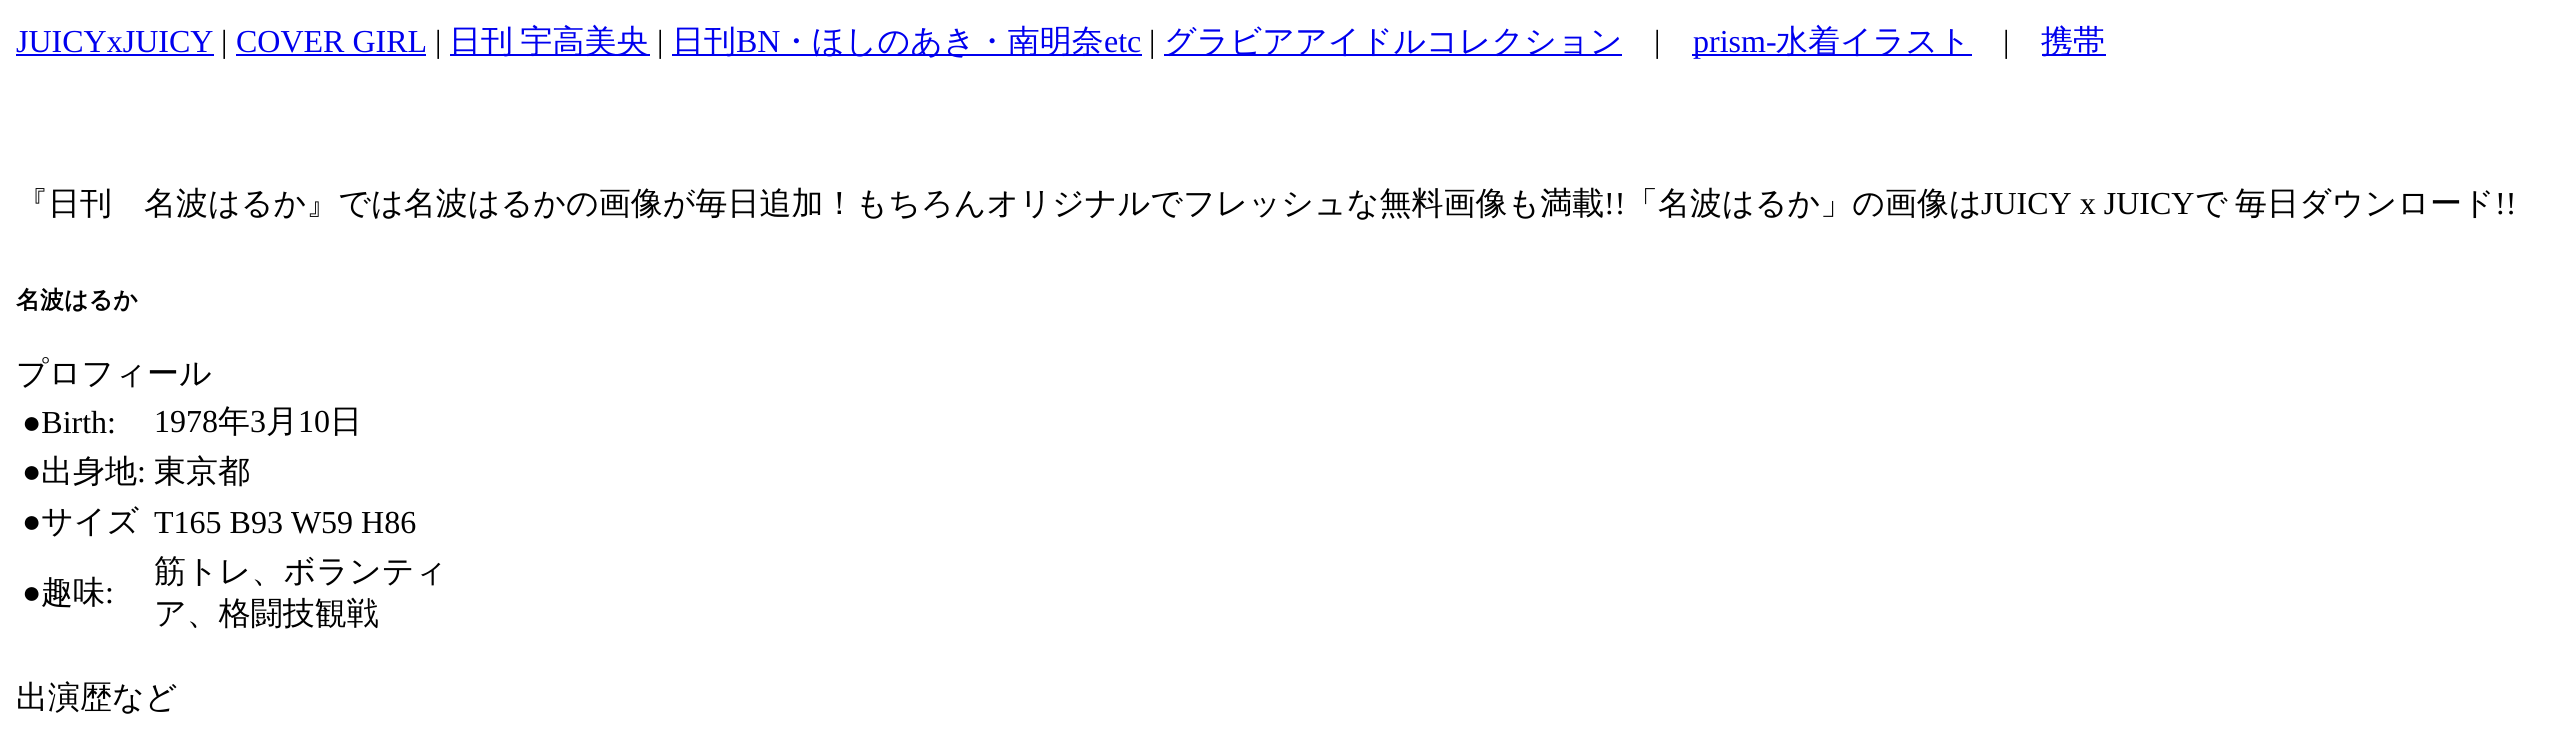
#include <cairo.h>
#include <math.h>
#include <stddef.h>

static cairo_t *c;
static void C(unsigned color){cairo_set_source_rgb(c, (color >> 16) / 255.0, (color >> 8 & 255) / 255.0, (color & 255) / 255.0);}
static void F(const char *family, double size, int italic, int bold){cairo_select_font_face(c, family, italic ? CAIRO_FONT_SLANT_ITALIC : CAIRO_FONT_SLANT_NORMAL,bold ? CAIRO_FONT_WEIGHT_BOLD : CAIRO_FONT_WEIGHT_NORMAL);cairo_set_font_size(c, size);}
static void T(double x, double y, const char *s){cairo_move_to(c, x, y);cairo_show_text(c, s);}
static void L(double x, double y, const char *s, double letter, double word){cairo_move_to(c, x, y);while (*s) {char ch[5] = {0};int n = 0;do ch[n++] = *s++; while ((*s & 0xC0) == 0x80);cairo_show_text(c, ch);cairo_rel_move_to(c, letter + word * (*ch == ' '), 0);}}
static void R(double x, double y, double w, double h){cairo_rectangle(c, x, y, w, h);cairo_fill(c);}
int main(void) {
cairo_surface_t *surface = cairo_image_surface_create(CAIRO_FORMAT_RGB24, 2559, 742);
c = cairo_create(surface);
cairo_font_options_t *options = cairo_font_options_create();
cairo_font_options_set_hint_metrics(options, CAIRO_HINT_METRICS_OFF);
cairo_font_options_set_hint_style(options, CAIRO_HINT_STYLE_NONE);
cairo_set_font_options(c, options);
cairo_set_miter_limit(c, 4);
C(0xffffff);
cairo_paint(c);
F("Liberation Serif",32,0,0);
C(0x0000ee);
T(16,52,"JUICYxJUICY");
R(16,54,198,2);
C(0x000000);
T(221,52,"|");
C(0x0000ee);
T(236,52,"COVER GIRL");
R(236,54,190,2);
C(0x000000);
T(435,52,"|");
C(0x0000ee);
R(450,54,200,2);
F("WenQuanYi Zen Hei Medium",32,0,0);
L(449,52,"日刊 宇高美央",0,-2);
F("Liberation Serif",32,0,0);
C(0x000000);
T(657,52,"|");
C(0x0000ee);
R(672,54,470,2);
F("WenQuanYi Zen Hei Medium",32,0,0);
T(672,52,"日刊");
F("Liberation Serif",32,0,0);
T(736,52,"BN");
F("WenQuanYi Zen Hei Medium",32,0,0);
T(780,52,"・ほしのあき・南明奈");
F("Liberation Serif",32,0,0);
T(1104,52,"etc");
C(0x000000);
T(1149,52,"|");
C(0x0000ee);
R(1164,54,458,2);
F("WenQuanYi Zen Hei Medium",32,0,0);
T(1164,52,"グラビアアイドルコレクション");
F("Liberation Serif",32,0,0);
C(0x000000);
T(1654,52,"|");
C(0x0000ee);
R(1692,54,280,2);
T(1693,52,"prism-");
F("WenQuanYi Zen Hei Medium",32,0,0);
T(1776,52,"水着イラスト");
F("Liberation Serif",32,0,0);
C(0x000000);
T(2003,52,"|");
C(0x0000ee);
R(2042,54,64,2);
F("WenQuanYi Zen Hei Medium",32,0,0);
T(2041,52,"携帯");
C(0x000000);
T(16,214,"『日刊　名波はるか』では名波はるかの画像が毎日追加！もちろんオリジナルでフレッシュな無料画像も満載");
F("Liberation Serif",32,0,0);
T(1604,214,"!!");
F("WenQuanYi Zen Hei Medium",32,0,0);
T(1626,214,"「名波はるか」の画像は");
F("Liberation Serif",32,0,0);
T(1981,214,"JUICY x JUICY");
F("WenQuanYi Zen Hei Medium",32,0,0);
T(2195,214,"で");
T(2235,214,"毎日ダウンロード");
F("Liberation Serif",32,0,0);
T(2495,214,"!!");
F("WenQuanYi Zen Hei",24,0,1);
T(16,308,"名波はるか");
F("WenQuanYi Zen Hei Medium",32,0,0);
T(16,384,"プロフィール");
F("Liberation Serif",32,0,0);
T(22,433,"●Birth:");
T(154,432,"1978");
F("WenQuanYi Zen Hei Medium",32,0,0);
T(218,432,"年");
F("Liberation Serif",32,0,0);
T(250,432,"3");
F("WenQuanYi Zen Hei Medium",32,0,0);
T(266,432,"月");
F("Liberation Serif",32,0,0);
T(298,432,"10");
F("WenQuanYi Zen Hei Medium",32,0,0);
T(330,432,"日");
F("Liberation Serif",32,0,0);
T(22,482,"●");
F("WenQuanYi Zen Hei Medium",32,0,0);
T(41,482,"出身地");
F("Liberation Serif",32,0,0);
T(137,482,":");
F("WenQuanYi Zen Hei Medium",32,0,0);
T(154,482,"東京都");
F("Liberation Serif",32,0,0);
T(22,532,"●");
F("WenQuanYi Zen Hei Medium",32,0,0);
T(41,532,"サイズ");
F("Liberation Serif",32,0,0);
T(154,533,"T165 B93 W59 H86");
T(22,603,"●");
F("WenQuanYi Zen Hei Medium",32,0,0);
T(41,603,"趣味");
F("Liberation Serif",32,0,0);
T(105,603,":");
F("WenQuanYi Zen Hei Medium",32,0,0);
T(154,582,"筋トレ、ボランティ");
T(154,624,"ア、格闘技観戦");
T(16,708,"出演歴など");
cairo_surface_write_to_png(surface, "o.png");
cairo_font_options_destroy(options);
cairo_destroy(c);
cairo_surface_destroy(surface);
return 0;
}
